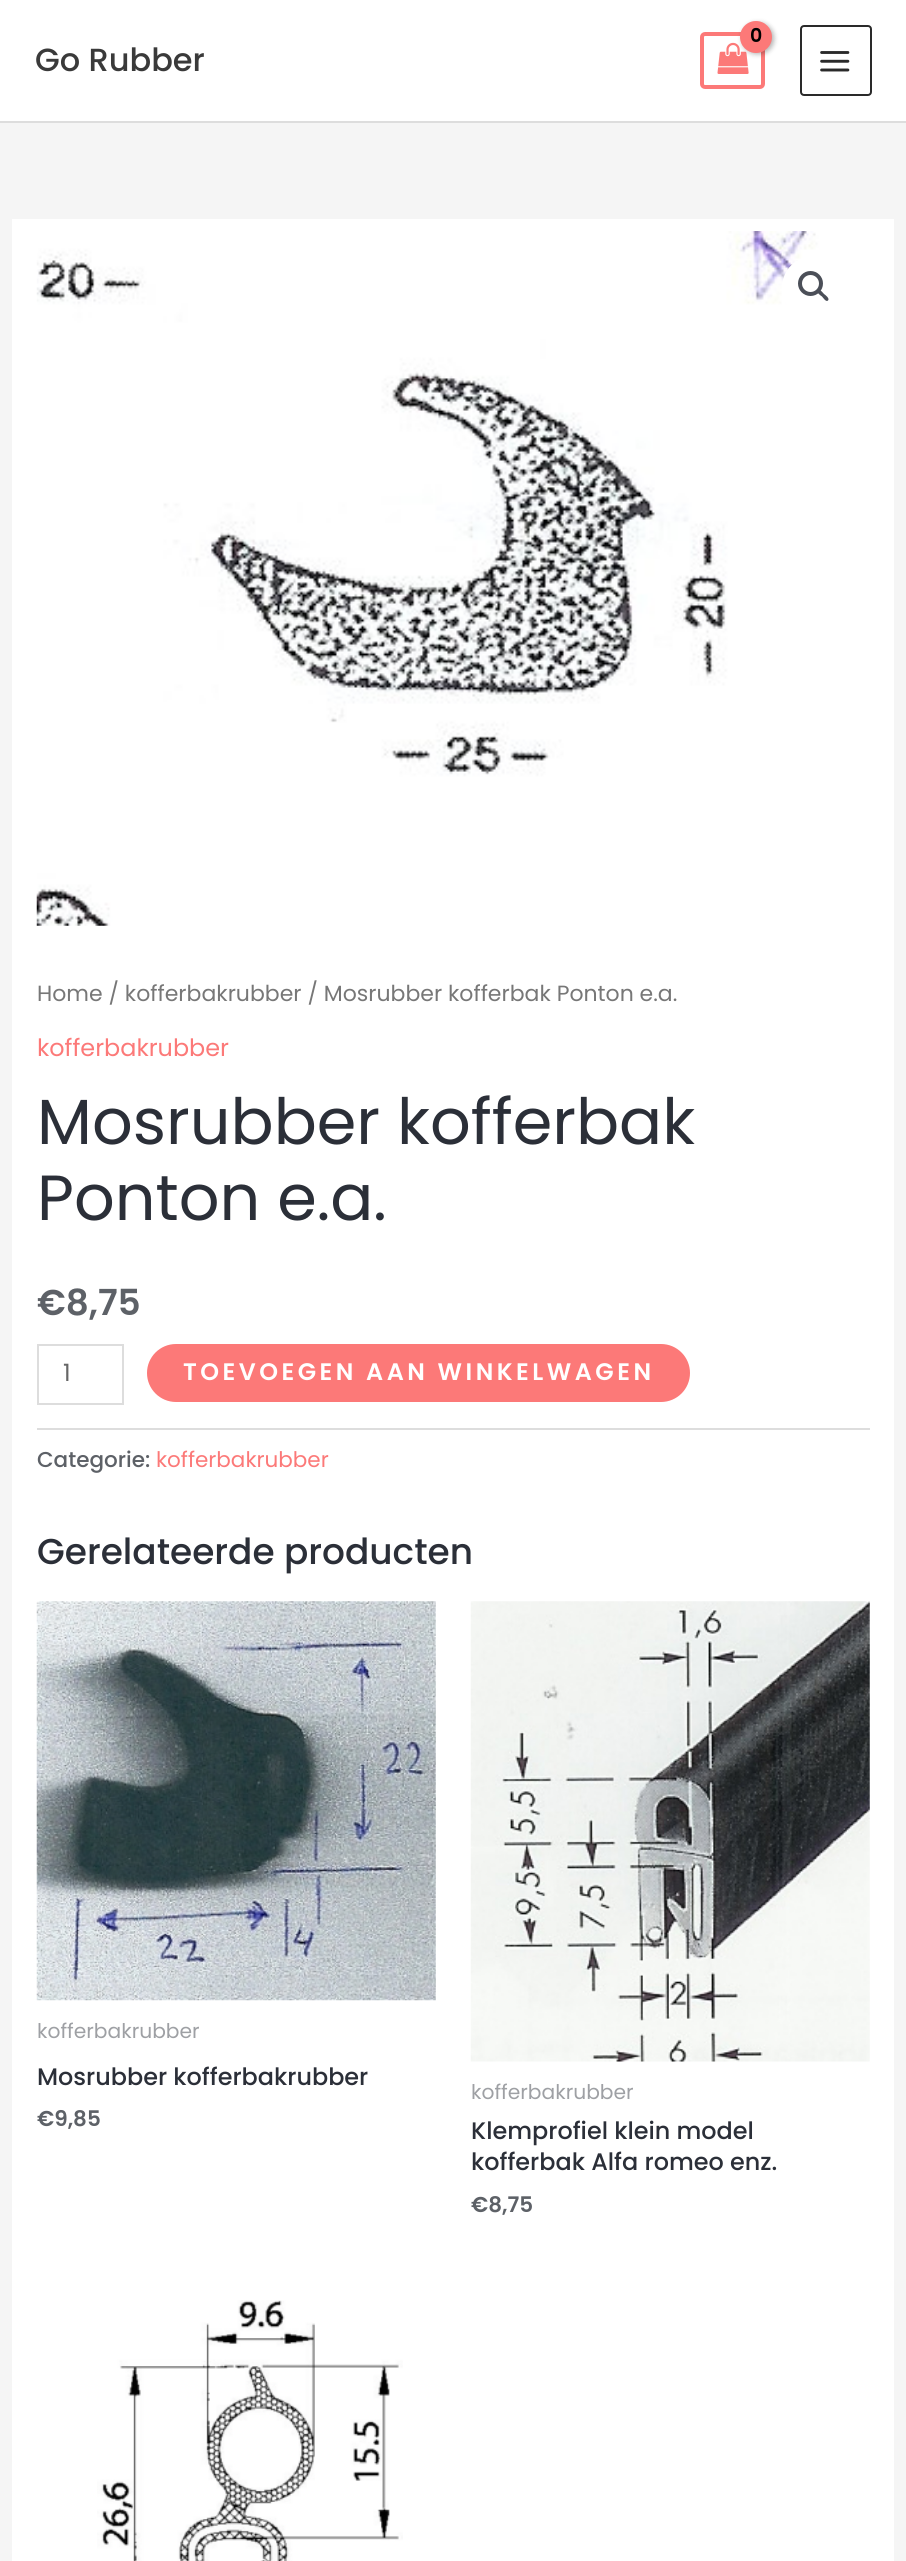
#include <cairo.h>
#include <math.h>
#include <stddef.h>

static cairo_t *c;
static void C(unsigned color){cairo_set_source_rgb(c, (color >> 16) / 255.0, (color >> 8 & 255) / 255.0, (color & 255) / 255.0);}
static void F(const char *family, double size, int italic, int bold){cairo_select_font_face(c, family, italic ? CAIRO_FONT_SLANT_ITALIC : CAIRO_FONT_SLANT_NORMAL,bold ? CAIRO_FONT_WEIGHT_BOLD : CAIRO_FONT_WEIGHT_NORMAL);cairo_set_font_size(c, size);}
static void T(double x, double y, const char *s){cairo_move_to(c, x, y);cairo_show_text(c, s);}
static void L(double x, double y, const char *s, double letter, double word){cairo_move_to(c, x, y);while (*s) {char ch[5] = {0};int n = 0;do ch[n++] = *s++; while ((*s & 0xC0) == 0x80);cairo_show_text(c, ch);cairo_rel_move_to(c, letter + word * (*ch == ' '), 0);}}
static void R(double x, double y, double w, double h){cairo_rectangle(c, x, y, w, h);cairo_fill(c);}
static void Q(double x, double y, double w, double h, double r){cairo_new_sub_path(c);cairo_arc(c, x + w - r, y + h - r, r, 0, M_PI / 2);cairo_arc(c, x + r, y + h - r, r, M_PI / 2, M_PI);cairo_arc(c, x + r, y + r, r, M_PI, 1.5 * M_PI);cairo_arc(c, x + w - r, y + r, r, 1.5 * M_PI, 2 * M_PI);cairo_close_path(c);}
static void S(double x, double y, double w, double h, double r, double blur, double alpha){cairo_push_group_with_content(c, CAIRO_CONTENT_ALPHA);cairo_set_operator(c, CAIRO_OPERATOR_SOURCE);for (int i = 15; i >= -15 && fmin(w, h) + blur * i / 3 > 0; i -= 2) {double e = blur * i / 6;cairo_set_source_rgba(c, 0, 0, 0, alpha * erfc((i - 1) / 8.5) / 2);Q(x - e, y - e, w + 2 * e, h + 2 * e, fmax(0, fmin(r + e + blur * .6, fmin(w, h) / 2 + e)));cairo_fill(c);}cairo_pattern_t *soft = cairo_pop_group(c);cairo_mask(c, soft);cairo_pattern_destroy(soft);}
static void I(const char *path, double x, double y, double w, double h){cairo_surface_t *image = cairo_image_surface_create_from_png(path);cairo_save(c);cairo_set_source_surface(c, image, x, y);cairo_rectangle(c, x, y, w, h);cairo_fill(c);cairo_restore(c);cairo_surface_destroy(image);}
int main(void) {
cairo_surface_t *surface = cairo_image_surface_create(CAIRO_FORMAT_RGB24, 906, 2561);
c = cairo_create(surface);
cairo_font_options_t *options = cairo_font_options_create();
cairo_font_options_set_hint_metrics(options, CAIRO_HINT_METRICS_OFF);
cairo_font_options_set_hint_style(options, CAIRO_HINT_STYLE_NONE);
cairo_set_font_options(c, options);
cairo_set_miter_limit(c, 4);
C(0xf5f5f5);
cairo_paint(c);
C(0xffffff);
R(0,0,906,121);
C(0xdddddd);
R(0,121,906,2);
Q(702,34,61,53,3);
C(0xfc7978);
cairo_set_line_width(c,4);
cairo_stroke(c);
I("1.png",717,42,32,32);
C(0x000000);
S(742,23,32,31,15.5,2.5,.3);
C(0xfc7978);
cairo_arc(c,756,37,16,0,2 * M_PI);
cairo_fill(c);
F("Poppins SemiBold",19,0,0);
C(0x000000);
L(750,42,"0",-1,0);
Q(801,26,70,69,3);
C(0x2a2a2a);
cairo_set_line_width(c,2);
cairo_stroke(c);
I("2.png",820,51,30,21);
F("Poppins Medium",32,0,0);
C(0x3a3a3a);
T(35,71,"Go Rubber");
C(0xffffff);
R(12,219,882,2342);
I("3.png",36,231,784,695);
cairo_arc(c,813.5,287.5,31.5,0,2 * M_PI);
cairo_fill(c);
cairo_arc(c,810.5,283.5,10.5,0,2 * M_PI);
C(0x4b4f58);
cairo_set_line_width(c,4);
cairo_stroke(c);
cairo_new_path(c);
cairo_move_to(c,818,290.5);
cairo_curve_to(c,820,288.5,823,293,824,294);
cairo_curve_to(c,825.5,295,830,298.5,828,300.5);
cairo_curve_to(c,826,302.5,823,297.5,822,296.5);
cairo_curve_to(c,820.5,295.5,816,292.5,818,290.5);
cairo_close_path(c);
cairo_fill(c);
F("Poppins",22,0,0);
C(0x777777);
T(37,1001,"Home / kofferbakrubber / Mosrubber kofferbak Ponton e.a.");
F("Poppins",23.9,0,0);
C(0xfc7978);
T(37,1056,"kofferbakrubber");
F("Poppins",63.75,0,0);
C(0x2b2f38);
T(37,1144,"Mosrubber kofferbak");
T(37,1220,"Ponton e.a.");
F("Poppins SemiBold",35.9,0,0);
C(0x5d6167);
T(37,1315,"€8,75");
cairo_rectangle(c,38,1345,85,59);
C(0xdddddd);
cairo_set_line_width(c,2);
cairo_stroke(c);
F("Poppins",23.9,0,0);
C(0x666666);
T(63,1381,"1");
C(0xfc7978);
Q(147,1344,543,58,29);
cairo_fill(c);
F("Poppins SemiBold",23.9,0,0);
C(0xffffff);
L(183,1380,"TOEVOEGEN AAN WINKELWAGEN",3.5,0);
C(0xdddddd);
R(37,1428,833,2);
F("Poppins Medium",21.5,0,0);
C(0x5d6167);
T(37,1467,"Categorie:");
F("Poppins",21.5,0,0);
C(0xfc7978);
T(156,1467,"kofferbakrubber");
F("Poppins Medium",35.9,0,0);
C(0x2b2f38);
T(37,1564,"Gerelateerde producten");
I("4.png",36,1601,400,400);
F("Poppins",20.25,0,0);
C(0x9ea0a4);
T(37,2038,"kofferbakrubber");
F("Poppins Medium",23.9,0,0);
C(0x2b2f38);
T(37,2085,"Mosrubber kofferbakrubber");
F("Poppins SemiBold",21.5,0,0);
C(0x5d6167);
T(37,2126,"€9,85");
I("5.png",470,1601,400,461);
F("Poppins",20.25,0,0);
C(0x9ea0a4);
T(471,2099,"kofferbakrubber");
F("Poppins Medium",23.9,0,0);
C(0x2b2f38);
T(471,2139,"Klemprofiel klein model");
T(471,2170,"kofferbak Alfa romeo enz.");
F("Poppins SemiBold",21.5,0,0);
C(0x5d6167);
T(471,2212,"€8,75");
I("6.png",97,2300,306,261);
cairo_surface_write_to_png(surface, "o.png");
cairo_font_options_destroy(options);
cairo_destroy(c);
cairo_surface_destroy(surface);
return 0;
}
